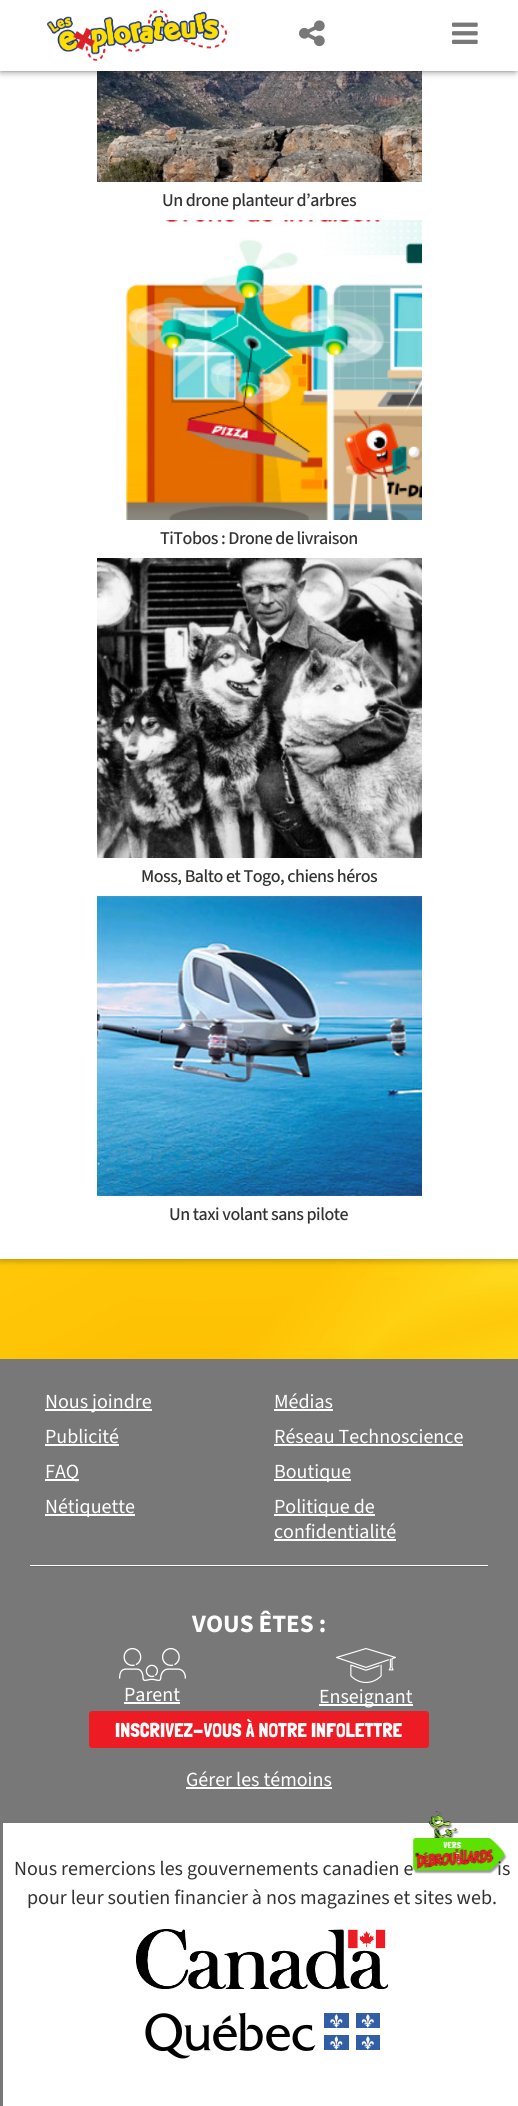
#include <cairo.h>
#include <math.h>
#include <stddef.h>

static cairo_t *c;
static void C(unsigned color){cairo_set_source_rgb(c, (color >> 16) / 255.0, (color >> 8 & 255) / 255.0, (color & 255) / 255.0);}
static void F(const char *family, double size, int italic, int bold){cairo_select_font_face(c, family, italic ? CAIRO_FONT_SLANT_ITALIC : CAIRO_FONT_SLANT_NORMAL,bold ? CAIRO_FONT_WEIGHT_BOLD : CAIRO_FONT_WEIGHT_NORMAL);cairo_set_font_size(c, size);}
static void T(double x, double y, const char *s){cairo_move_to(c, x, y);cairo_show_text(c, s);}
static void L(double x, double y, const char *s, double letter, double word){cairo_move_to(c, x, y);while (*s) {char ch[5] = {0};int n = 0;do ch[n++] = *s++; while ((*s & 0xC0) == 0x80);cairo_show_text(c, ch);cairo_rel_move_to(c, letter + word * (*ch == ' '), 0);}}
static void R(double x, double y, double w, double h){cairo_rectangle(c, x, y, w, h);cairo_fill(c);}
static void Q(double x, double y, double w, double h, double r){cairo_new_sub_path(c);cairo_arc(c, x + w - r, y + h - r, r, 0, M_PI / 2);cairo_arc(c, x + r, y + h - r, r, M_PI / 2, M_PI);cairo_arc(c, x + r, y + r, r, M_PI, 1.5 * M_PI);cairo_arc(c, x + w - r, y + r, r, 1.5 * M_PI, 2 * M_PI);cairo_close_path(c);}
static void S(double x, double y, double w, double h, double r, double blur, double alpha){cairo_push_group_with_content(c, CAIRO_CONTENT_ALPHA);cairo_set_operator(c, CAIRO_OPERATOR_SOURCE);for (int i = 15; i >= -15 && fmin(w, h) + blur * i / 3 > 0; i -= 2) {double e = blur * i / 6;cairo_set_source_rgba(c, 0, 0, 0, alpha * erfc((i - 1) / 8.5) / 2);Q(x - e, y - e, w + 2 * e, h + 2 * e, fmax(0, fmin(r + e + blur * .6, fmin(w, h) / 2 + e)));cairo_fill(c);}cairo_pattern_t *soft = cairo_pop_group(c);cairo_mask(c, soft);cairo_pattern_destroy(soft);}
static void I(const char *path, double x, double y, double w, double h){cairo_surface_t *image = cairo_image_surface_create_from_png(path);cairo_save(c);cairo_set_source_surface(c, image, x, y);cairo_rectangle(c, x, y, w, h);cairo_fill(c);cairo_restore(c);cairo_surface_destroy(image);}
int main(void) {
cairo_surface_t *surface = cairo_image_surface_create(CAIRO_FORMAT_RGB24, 518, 2106);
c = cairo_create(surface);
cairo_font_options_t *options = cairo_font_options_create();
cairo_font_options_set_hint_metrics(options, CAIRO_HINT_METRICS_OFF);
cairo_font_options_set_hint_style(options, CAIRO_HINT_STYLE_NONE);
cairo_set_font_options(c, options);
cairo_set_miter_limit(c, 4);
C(0xffffff);
cairo_paint(c);
I("1.png",0,1259,518,100);
C(0x000000);
S(0,-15,518,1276,0,5,.12);
S(0,-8,518,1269,0,2.5,.16);
C(0xffffff);
R(0,71,518,1188);
I("5.png",97,71,325,111);
C(0x000000);
S(1,3,514,67,0,4,.75);
C(0xffffff);
R(0,0,518,71);
I("2.png",47,10,180,51);
I("3.png",299,20,26,27);
I("4.png",452,22,26,22);
F("Source Sans 3 Medium",18,0,0);
C(0x333333);
L(162,206,"Un drone planteur d’arbres",-.5,0);
I("6.png",125,220,297,300);
L(160,544,"TiTobos : Drone de livraison",-.5,0);
I("7.png",97,558,325,300);
L(141,882,"Moss, Balto et Togo, chiens héros",-.5,0);
I("8.png",97,896,325,300);
L(169,1220,"Un taxi volant sans pilote",-.5,0);
C(0x787878);
R(0,1359,518,747);
C(0xffffff);
R(45,1409,107,2);
F("Source Sans 3",20,0,0);
T(45,1408,"Nous joindre");
T(45,1443,"Publicité");
R(45,1444,74,2);
R(45,1479,34,2);
T(45,1478,"FAQ");
R(45,1514,90,2);
T(45,1513,"Nétiquette");
T(274,1408,"Médias");
R(274,1409,59,2);
T(274,1443,"Réseau Technoscience");
R(274,1444,189,2);
R(274,1479,77,2);
T(274,1478,"Boutique");
R(274,1514,101,2);
T(274,1513,"Politique de");
T(274,1538,"confidentialité");
R(274,1539,122,2);
C(0x6a6a6a);
R(30,1566,458,1);
C(0xffffff);
R(30,1565,458,1);
F("Source Sans 3",25,0,1);
T(192,1632,"VOUS ÊTES :");
I("9.png",119,1648,67,33);
F("Source Sans 3",20,0,0);
T(124,1701,"Parent");
R(124,1702,56,2);
I("10.png",336,1648,60,35);
R(319,1704,94,2);
T(319,1703,"Enseignant");
C(0xed1c24);
Q(89,1711,340,37,3);
cairo_fill(c);
F("Londrina Solid",20,0,0);
C(0xffffff);
T(115,1737,"INSCRIVEZ-VOUS À NOTRE INFOLETTRE");
F("Source Sans 3",20,0,0);
T(186,1786,"Gérer les témoins");
R(186,1787,146,2);
R(3,1823,515,283);
C(0x333333);
T(14,1875,"Nous remercions les gouvernements canadien e");
T(497,1875,"is");
T(27,1904,"pour leur soutien financier à nos magazines et sites web.");
I("11.png",136,1929,252,60);
I("12.png",145,2012,235,47);
I("13.png",413,1811,94,63);
cairo_surface_write_to_png(surface, "o.png");
cairo_font_options_destroy(options);
cairo_destroy(c);
cairo_surface_destroy(surface);
return 0;
}
